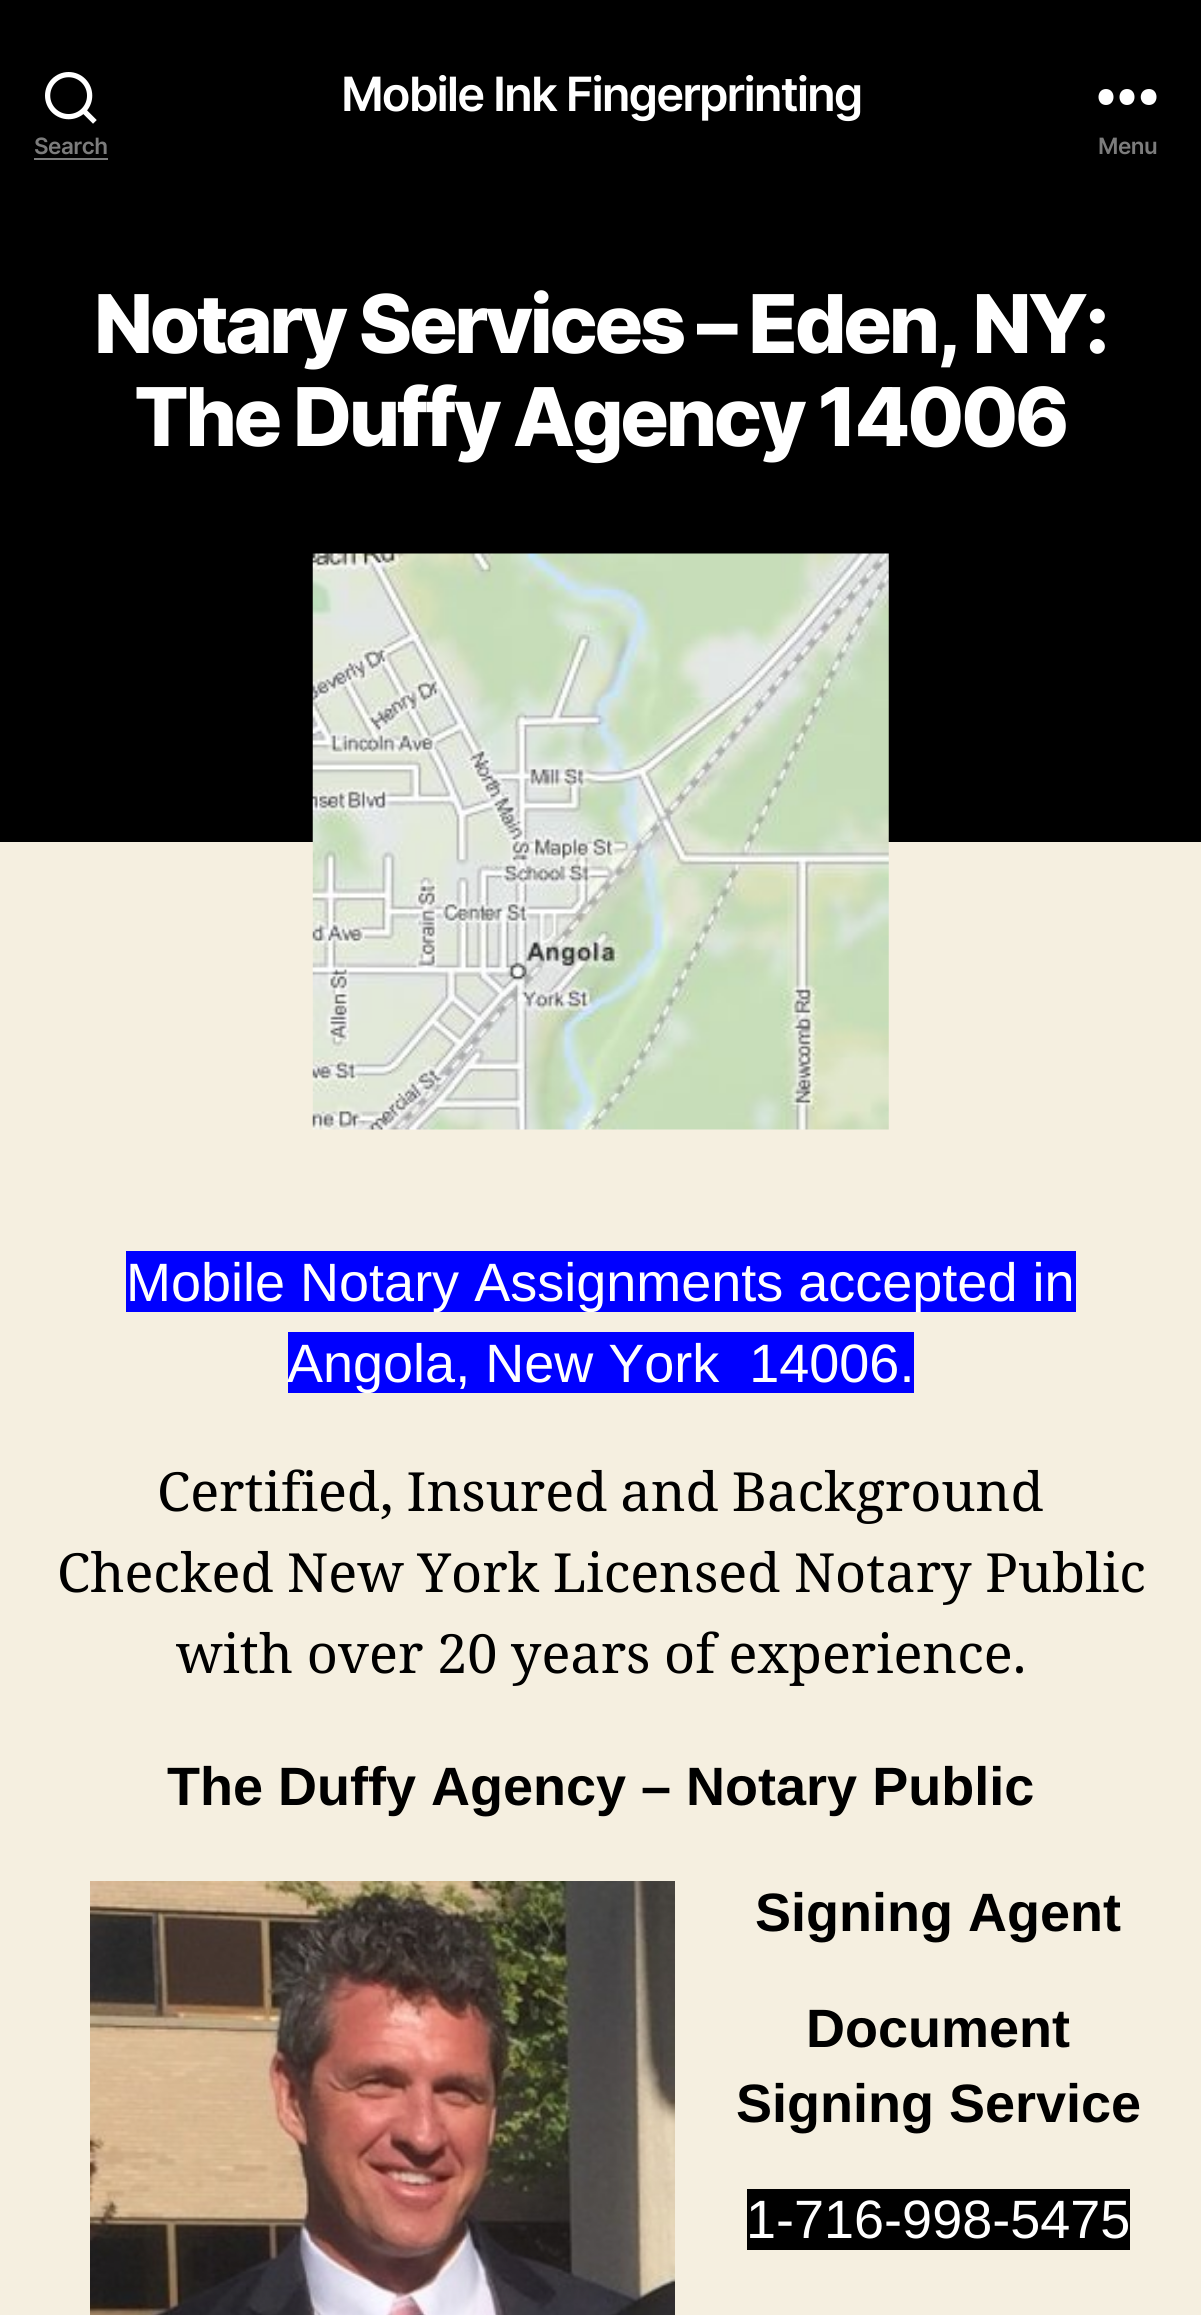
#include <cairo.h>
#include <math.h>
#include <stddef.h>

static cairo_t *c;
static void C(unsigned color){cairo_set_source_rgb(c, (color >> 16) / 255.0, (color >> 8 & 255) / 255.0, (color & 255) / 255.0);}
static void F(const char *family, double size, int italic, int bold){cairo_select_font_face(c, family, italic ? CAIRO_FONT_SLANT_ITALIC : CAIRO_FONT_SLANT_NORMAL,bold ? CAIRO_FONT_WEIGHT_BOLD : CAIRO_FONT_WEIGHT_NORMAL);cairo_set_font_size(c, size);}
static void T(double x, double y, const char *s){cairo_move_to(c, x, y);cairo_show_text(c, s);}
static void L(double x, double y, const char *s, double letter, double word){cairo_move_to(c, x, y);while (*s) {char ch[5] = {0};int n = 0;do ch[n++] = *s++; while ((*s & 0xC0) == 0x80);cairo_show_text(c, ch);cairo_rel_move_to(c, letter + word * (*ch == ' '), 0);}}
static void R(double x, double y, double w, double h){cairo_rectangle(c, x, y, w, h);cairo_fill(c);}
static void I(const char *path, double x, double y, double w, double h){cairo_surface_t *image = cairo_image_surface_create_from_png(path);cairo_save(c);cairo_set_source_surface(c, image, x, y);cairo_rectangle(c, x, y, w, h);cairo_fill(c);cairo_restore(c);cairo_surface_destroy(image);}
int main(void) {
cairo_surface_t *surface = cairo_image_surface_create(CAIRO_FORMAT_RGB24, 1201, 2315);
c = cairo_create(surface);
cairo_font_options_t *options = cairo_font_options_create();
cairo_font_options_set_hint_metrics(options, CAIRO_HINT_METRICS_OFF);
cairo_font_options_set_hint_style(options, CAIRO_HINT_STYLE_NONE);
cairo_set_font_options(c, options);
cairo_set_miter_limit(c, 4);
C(0xf5efe0);
cairo_paint(c);
C(0x000000);
R(0,0,1201,842);
F("Inter SemiBold",47.25,0,0);
C(0xffffff);
L(341,111,"Mobile Ink Fingerprinting",-1.95,0);
I("1.png",45,72,52,52);
F("Inter SemiBold",22.5,0,0);
C(0x7c7c7c);
L(34,154,"Search",-.5,0);
R(34,158,74,2);
C(0xffffff);
cairo_set_fill_rule(c,CAIRO_FILL_RULE_EVEN_ODD);
cairo_new_path(c);
cairo_move_to(c,1106,105);
cairo_curve_to(c,1096,105,1096,89,1106,89);
cairo_curve_to(c,1116,89,1116,105,1106,105);
cairo_close_path(c);
cairo_move_to(c,1127,105);
cairo_curve_to(c,1117,105,1117,89,1127,89);
cairo_curve_to(c,1137,89,1137,105,1127,105);
cairo_close_path(c);
cairo_move_to(c,1149,105);
cairo_curve_to(c,1138,105,1138,89,1149,89);
cairo_curve_to(c,1159,89,1159,105,1149,105);
cairo_close_path(c);
cairo_fill(c);
C(0x7c7c7c);
L(1098,154,"Menu",-.5,0);
F("Inter ExtraBold",81,0,0);
C(0xffffff);
L(94,353,"Notary Services – Eden, NY:",-3.4,0);
L(134,446,"The Duffy Agency 14006",-3.4,0);
I("2.png",312,553,577,577);
C(0x0000ff);
R(126,1251,950,61);
F("Liberation Sans",54,0,0);
C(0xffffff);
T(126,1301,"Mobile Notary Assignments accepted in");
C(0x0000ff);
R(288,1332,626,61);
C(0xffffff);
T(287,1382,"Angola, New York  14006.");
F("Noto Serif",54,0,0);
C(0x000000);
L(157,1511,"Certified, Insured and Background",0,-1);
L(57,1592,"Checked New York Licensed Notary Public",0,-.5);
L(176,1673,"with over 20 years of experience.",0,-.5);
F("Liberation Sans",54,0,1);
T(167,1805,"The Duffy Agency – Notary Public");
I("3.png",90,1881,585,434);
T(755,1931,"Signing Agent");
T(806,2047,"Document");
T(736,2122,"Signing Service");
R(747,2189,383,61);
F("Liberation Sans",54,0,0);
C(0xffffff);
T(746,2238,"1-716-998-5475");
cairo_surface_write_to_png(surface, "o.png");
cairo_font_options_destroy(options);
cairo_destroy(c);
cairo_surface_destroy(surface);
return 0;
}
